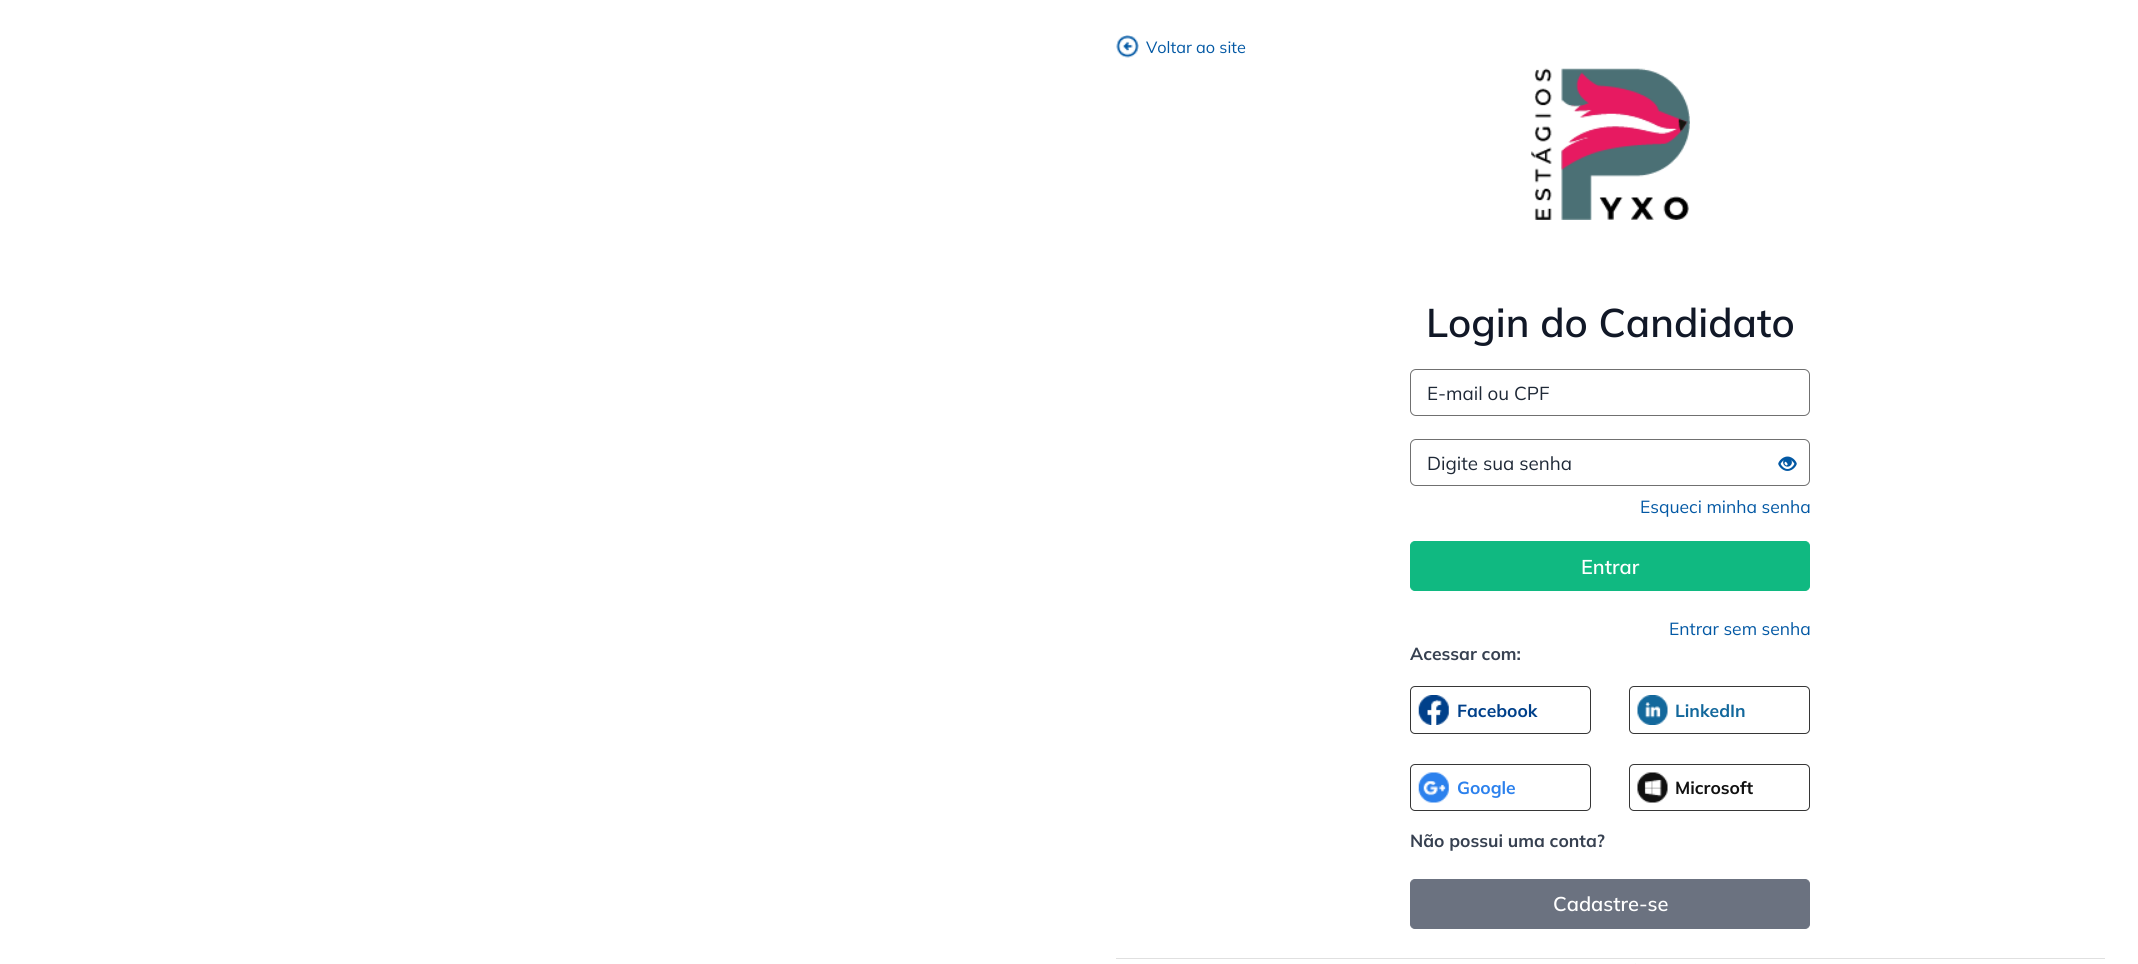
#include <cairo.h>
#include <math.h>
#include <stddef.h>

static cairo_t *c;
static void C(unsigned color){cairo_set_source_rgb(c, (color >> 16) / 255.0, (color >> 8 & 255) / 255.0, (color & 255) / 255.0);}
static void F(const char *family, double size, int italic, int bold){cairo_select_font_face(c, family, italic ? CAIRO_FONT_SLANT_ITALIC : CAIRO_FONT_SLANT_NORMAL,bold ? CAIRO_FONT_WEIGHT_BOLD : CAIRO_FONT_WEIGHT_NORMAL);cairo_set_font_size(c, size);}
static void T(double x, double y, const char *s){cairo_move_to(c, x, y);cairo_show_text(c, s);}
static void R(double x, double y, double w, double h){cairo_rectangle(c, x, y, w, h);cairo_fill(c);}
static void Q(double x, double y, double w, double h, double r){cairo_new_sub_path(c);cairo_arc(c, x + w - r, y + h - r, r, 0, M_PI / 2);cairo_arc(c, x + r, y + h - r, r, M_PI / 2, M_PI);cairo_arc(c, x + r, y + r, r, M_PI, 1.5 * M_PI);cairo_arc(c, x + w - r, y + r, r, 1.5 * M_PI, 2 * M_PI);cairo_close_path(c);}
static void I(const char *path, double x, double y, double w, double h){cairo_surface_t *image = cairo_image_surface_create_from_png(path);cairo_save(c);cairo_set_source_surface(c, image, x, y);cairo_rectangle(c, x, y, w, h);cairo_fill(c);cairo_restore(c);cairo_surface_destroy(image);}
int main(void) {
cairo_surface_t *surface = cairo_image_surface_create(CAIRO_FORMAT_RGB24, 2138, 964);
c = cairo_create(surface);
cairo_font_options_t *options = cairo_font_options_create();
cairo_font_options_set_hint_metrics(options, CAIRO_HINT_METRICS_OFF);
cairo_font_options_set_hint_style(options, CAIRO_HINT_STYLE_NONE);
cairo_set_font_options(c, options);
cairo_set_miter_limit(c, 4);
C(0xffffff);
cairo_paint(c);
I("1.png",1116,35,23,23);
F("Mulish",16.25,0,0);
C(0x0258a4);
T(1146,53,"Voltar ao site");
I("2.png",1531,68,159,152);
F("Mulish SemiBold",40,0,0);
C(0x111827);
T(1426,337,"Login do Candidato");
Q(1410.5,369.5,399,46,5.5);
C(0x707070);
cairo_set_line_width(c,1);
cairo_stroke(c);
F("Mulish",18.75,0,0);
C(0x1f2937);
T(1427,400,"E-mail ou CPF");
Q(1410.5,439.5,399,46,5.5);
C(0x707070);
cairo_stroke(c);
C(0x1f2937);
T(1427,470,"Digite sua senha");
I("3.png",1778,456,19,15);
F("Mulish",17.5,0,0);
C(0x0258a4);
T(1640,513,"Esqueci minha senha");
C(0x10b981);
Q(1410.5,541.5,399,49,4.5);
cairo_fill_preserve(c);
cairo_stroke(c);
F("Mulish SemiBold",20,0,0);
C(0xffffff);
T(1581,574,"Entrar");
F("Mulish",17.5,0,0);
C(0x0258a4);
T(1669,635,"Entrar sem senha");
F("Mulish",17.5,0,1);
C(0x374151);
T(1410,660,"Acessar com:");
I("4.png",1418,695,31,30);
Q(1410.5,686.5,180,47,4.5);
C(0x363636);
cairo_stroke(c);
C(0x00408a);
T(1457,717,"Facebook");
I("5.png",1637,695,31,30);
Q(1629.5,686.5,180,47,4.5);
C(0x363636);
cairo_stroke(c);
C(0x13689c);
T(1675,717,"LinkedIn");
I("6.png",1418,772,31,31);
Q(1410.5,764.5,180,46,4.5);
C(0x363636);
cairo_stroke(c);
C(0x2c81ed);
T(1457,794,"Google");
I("7.png",1637,772,31,31);
Q(1629.5,764.5,180,46,4.5);
C(0x363636);
cairo_stroke(c);
C(0x111111);
T(1675,794,"Microsoft");
C(0x374151);
T(1410,847,"Não possui uma conta?");
C(0x6b7280);
Q(1410.5,879.5,399,49,4.5);
cairo_fill_preserve(c);
cairo_stroke(c);
F("Mulish SemiBold",20,0,0);
C(0xffffff);
T(1553,911,"Cadastre-se");
C(0xe0e0e0);
R(1116,958,989,1);
C(0xfafafa);
R(1635,963,1,1);
cairo_surface_write_to_png(surface, "o.png");
cairo_font_options_destroy(options);
cairo_destroy(c);
cairo_surface_destroy(surface);
return 0;
}
